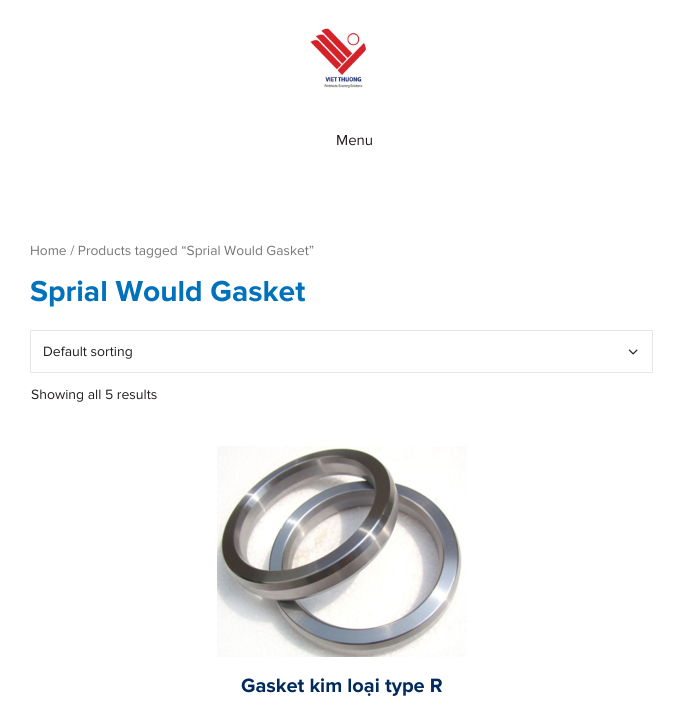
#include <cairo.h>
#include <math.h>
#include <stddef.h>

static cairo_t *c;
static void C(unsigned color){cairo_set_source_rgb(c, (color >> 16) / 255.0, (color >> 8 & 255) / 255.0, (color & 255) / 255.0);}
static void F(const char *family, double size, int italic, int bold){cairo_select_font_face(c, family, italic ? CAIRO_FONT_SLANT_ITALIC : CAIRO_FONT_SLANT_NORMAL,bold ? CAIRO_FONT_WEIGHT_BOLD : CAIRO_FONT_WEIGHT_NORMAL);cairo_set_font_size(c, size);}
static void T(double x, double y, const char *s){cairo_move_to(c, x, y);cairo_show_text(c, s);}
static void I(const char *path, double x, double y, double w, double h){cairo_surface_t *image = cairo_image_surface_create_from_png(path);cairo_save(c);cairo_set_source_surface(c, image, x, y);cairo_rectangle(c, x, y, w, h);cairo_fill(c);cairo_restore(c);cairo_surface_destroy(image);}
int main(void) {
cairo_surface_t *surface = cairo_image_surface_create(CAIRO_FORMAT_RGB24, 683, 706);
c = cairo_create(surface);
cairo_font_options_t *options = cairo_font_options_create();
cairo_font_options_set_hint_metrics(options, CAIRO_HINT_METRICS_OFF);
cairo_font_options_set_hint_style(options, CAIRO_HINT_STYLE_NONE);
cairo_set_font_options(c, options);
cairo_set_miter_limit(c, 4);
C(0xffffff);
cairo_paint(c);
I("1.png",310,28,56,60);
F("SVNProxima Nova",15,0,0);
C(0x231f20);
T(336,145,"Menu");
F("SVNProxima Nova",13.8,0,0);
C(0x767676);
T(30,255,"Home / Products tagged “Sprial Would Gasket”");
F("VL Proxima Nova",30,0,1);
C(0x0072bc);
T(30,301,"Sprial Would Gasket");
cairo_rectangle(c,30.5,330.5,622,42);
C(0xe6e6e6);
cairo_set_line_width(c,1);
cairo_stroke(c);
F("SVNProxima Nova",14,0,0);
C(0x231f20);
T(43,356,"Default sorting");
I("2.png",628,349,10,6);
T(31,399,"Showing all 5 results");
I("3.png",217,446,250,211);
F("VL Proxima Nova",20,0,1);
C(0x00295c);
T(241,692,"Gasket kim loại type R");
cairo_surface_write_to_png(surface, "o.png");
cairo_font_options_destroy(options);
cairo_destroy(c);
cairo_surface_destroy(surface);
return 0;
}
